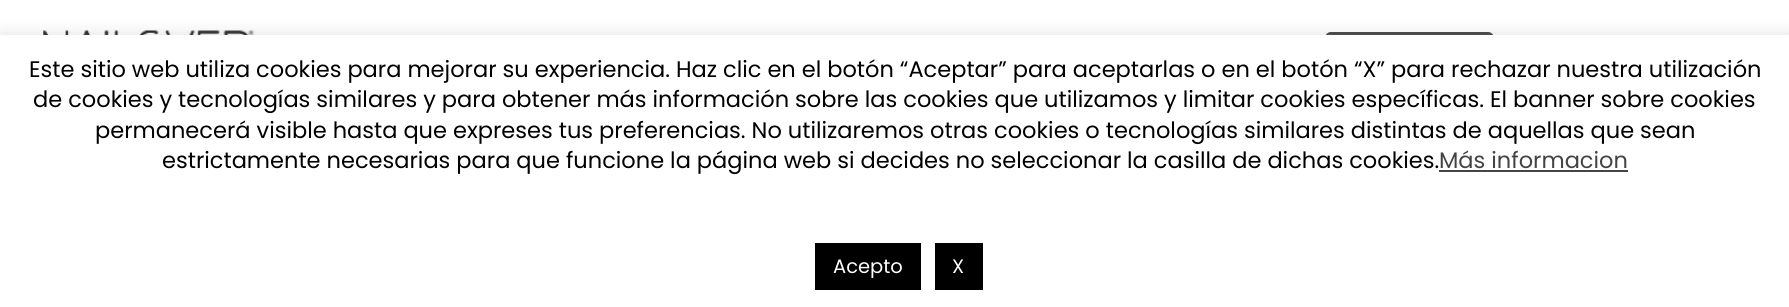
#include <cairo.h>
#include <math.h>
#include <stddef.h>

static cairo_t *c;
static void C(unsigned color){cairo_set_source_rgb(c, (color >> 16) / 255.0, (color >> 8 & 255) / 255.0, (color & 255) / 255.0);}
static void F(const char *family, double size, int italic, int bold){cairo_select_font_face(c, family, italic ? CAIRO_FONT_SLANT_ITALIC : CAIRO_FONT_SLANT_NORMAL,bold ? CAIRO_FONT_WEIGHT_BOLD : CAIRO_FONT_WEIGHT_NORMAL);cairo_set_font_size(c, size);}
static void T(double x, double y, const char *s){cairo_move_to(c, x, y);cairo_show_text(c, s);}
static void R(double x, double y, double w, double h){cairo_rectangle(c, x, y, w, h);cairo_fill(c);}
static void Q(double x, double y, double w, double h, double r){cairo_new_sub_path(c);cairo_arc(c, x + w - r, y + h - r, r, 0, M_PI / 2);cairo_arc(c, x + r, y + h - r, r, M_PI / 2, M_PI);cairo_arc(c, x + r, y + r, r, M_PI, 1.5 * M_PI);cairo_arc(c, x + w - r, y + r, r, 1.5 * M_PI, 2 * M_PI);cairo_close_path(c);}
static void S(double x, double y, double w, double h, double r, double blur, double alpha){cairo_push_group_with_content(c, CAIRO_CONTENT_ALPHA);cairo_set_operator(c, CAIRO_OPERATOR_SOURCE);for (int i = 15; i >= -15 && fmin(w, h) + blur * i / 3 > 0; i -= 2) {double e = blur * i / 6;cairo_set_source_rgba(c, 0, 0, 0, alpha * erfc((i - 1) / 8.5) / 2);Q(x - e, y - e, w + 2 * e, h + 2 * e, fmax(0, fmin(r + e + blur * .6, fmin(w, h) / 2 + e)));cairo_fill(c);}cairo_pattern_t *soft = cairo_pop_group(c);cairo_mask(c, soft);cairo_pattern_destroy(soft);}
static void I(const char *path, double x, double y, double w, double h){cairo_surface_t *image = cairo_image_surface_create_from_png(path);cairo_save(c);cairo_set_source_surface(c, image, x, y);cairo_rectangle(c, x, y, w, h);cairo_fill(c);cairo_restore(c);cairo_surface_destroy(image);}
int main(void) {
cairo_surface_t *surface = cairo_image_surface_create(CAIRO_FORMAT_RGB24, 1789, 307);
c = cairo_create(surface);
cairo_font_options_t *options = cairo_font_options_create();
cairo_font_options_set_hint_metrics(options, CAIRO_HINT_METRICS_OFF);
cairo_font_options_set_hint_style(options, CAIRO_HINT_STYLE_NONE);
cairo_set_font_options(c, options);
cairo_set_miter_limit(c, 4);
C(0xffffff);
cairo_paint(c);
I("1.png",43,30,211,5);
C(0x3a3a3a);
Q(1325,32,169,51,6);
cairo_fill(c);
C(0xacabab);
S(0,33,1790,273,0,7.5,.3);
C(0xffffff);
R(0,35,1789,272);
F("Poppins",22.5,0,0);
C(0x000000);
T(29,77,"Este sitio web utiliza cookies para mejorar su experiencia. Haz clic en el botón “Aceptar” para aceptarlas o en el botón “X” para rechazar nuestra utilización");
T(33,107,"de cookies y tecnologías similares y para obtener más información sobre las cookies que utilizamos y limitar cookies específicas. El banner sobre cookies");
T(95,138,"permanecerá visible hasta que expreses tus preferencias. No utilizaremos otras cookies o tecnologías similares distintas de aquellas que sean");
T(162,168,"estrictamente necesarias para que funcione la página web si decides no seleccionar la casilla de dichas cookies.");
C(0x444444);
T(1439,168,"Más informacion");
R(1439,170,189,2);
C(0x000000);
R(815,243,106,47);
F("Poppins",19.5,0,0);
C(0xffffff);
T(833,273,"Acepto");
C(0x000000);
R(935,243,48,47);
C(0xffffff);
T(952,273,"X");
cairo_surface_write_to_png(surface, "o.png");
cairo_font_options_destroy(options);
cairo_destroy(c);
cairo_surface_destroy(surface);
return 0;
}
